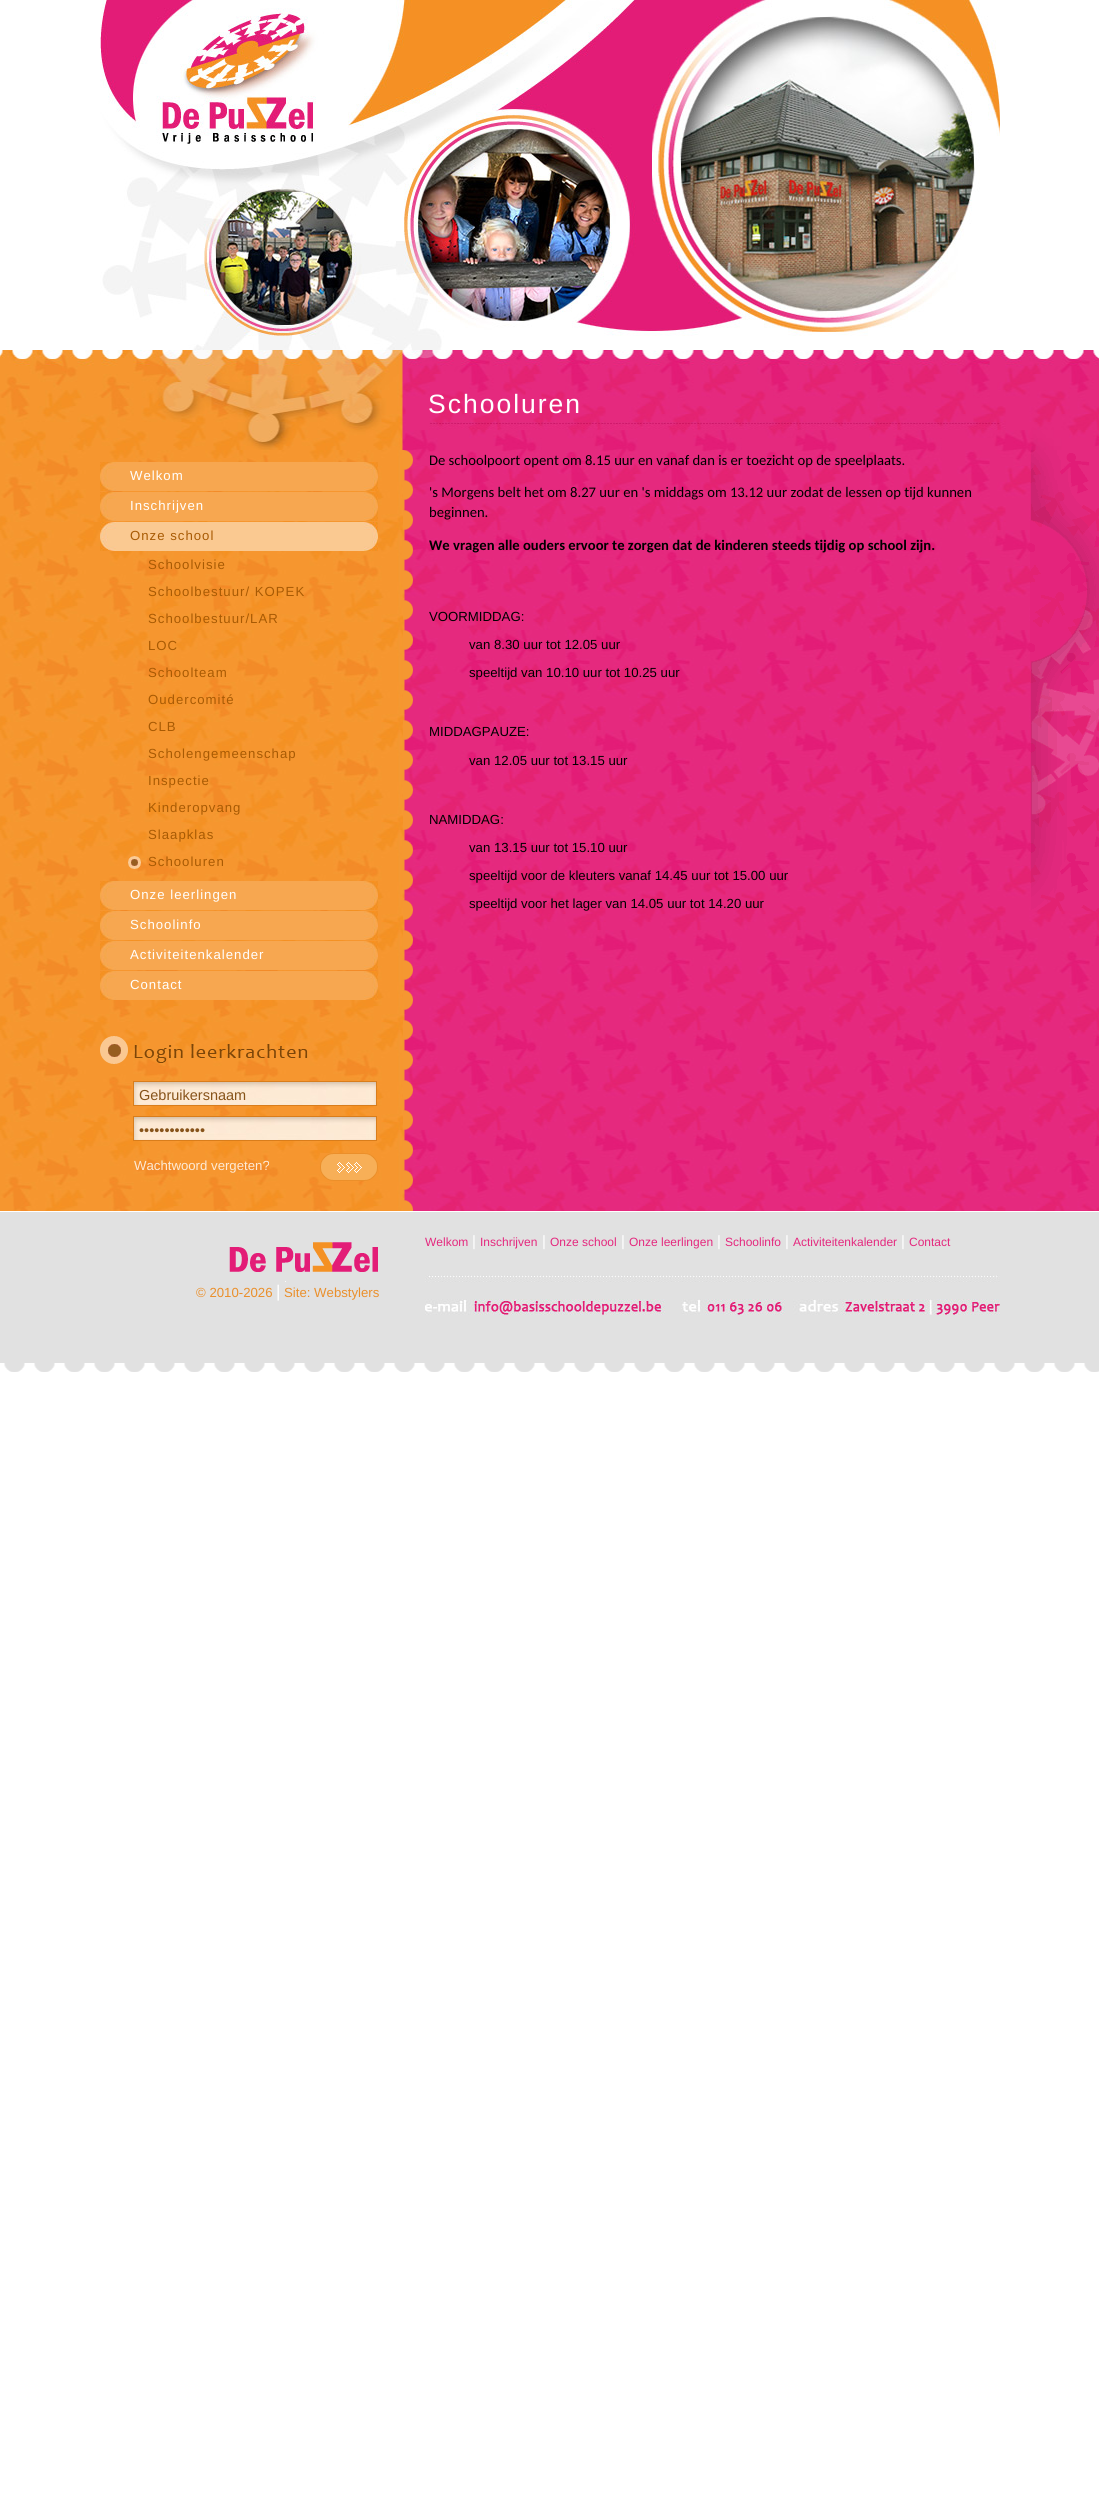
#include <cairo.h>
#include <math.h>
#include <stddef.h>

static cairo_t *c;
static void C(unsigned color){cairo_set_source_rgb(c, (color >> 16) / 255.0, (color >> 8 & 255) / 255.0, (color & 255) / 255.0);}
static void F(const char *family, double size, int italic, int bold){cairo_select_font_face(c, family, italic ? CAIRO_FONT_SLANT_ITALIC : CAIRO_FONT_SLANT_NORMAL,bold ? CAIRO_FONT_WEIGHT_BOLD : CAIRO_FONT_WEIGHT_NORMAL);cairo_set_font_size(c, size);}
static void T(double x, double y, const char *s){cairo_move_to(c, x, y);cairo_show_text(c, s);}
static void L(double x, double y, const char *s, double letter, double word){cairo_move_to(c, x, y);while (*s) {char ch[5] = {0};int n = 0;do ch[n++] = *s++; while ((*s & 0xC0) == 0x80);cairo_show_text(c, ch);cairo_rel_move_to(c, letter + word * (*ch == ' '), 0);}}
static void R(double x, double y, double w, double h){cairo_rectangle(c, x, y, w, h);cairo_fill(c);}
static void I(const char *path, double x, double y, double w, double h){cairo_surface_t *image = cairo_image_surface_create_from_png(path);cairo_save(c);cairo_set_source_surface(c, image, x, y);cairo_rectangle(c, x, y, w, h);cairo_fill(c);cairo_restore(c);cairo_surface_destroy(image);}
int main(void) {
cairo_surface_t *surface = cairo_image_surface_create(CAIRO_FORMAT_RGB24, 1099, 2494);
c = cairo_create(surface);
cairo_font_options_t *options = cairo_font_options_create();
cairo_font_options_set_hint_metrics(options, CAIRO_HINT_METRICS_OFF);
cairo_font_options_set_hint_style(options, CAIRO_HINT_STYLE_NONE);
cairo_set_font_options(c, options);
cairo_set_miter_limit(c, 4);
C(0xffffff);
cairo_paint(c);
I("1.png",100,0,900,350);
I("2.png",0,350,1099,100);
F("Liberation Sans",26.5,0,0);
C(0xffffff);
L(428,413,"Schooluren",2,0);
I("3.png",0,450,1099,761);
I("4.png",403,450,10,761);
I("5.png",1030,450,69,461);
I("6.png",100,462,278,29);
F("Liberation Sans",13.2,0,0);
L(130,480,"Welkom",1,0);
I("6.png",100,492,278,29);
L(130,510,"Inschrijven",1,0);
I("7.png",100,522,278,29);
C(0xa85a03);
L(130,540,"Onze school",1,0);
L(148,569,"Schoolvisie",1,0);
L(148,596,"Schoolbestuur/ KOPEK",1,0);
L(148,623,"Schoolbestuur/LAR",1,0);
L(148,650,"LOC",1,0);
L(148,677,"Schoolteam",1,0);
L(148,704,"Oudercomité",1,0);
L(148,731,"CLB",1,0);
L(148,758,"Scholengemeenschap",1,0);
L(148,785,"Inspectie",1,0);
L(148,812,"Kinderopvang",1,0);
L(148,839,"Slaapklas",1,0);
I("8.png",128,856,13,13);
L(148,866,"Schooluren",1,0);
I("6.png",100,881,278,29);
C(0xffffff);
L(130,899,"Onze leerlingen",1,0);
I("6.png",100,911,278,29);
L(130,929,"Schoolinfo",1,0);
I("6.png",100,941,278,29);
L(130,959,"Activiteitenkalender",1,0);
I("6.png",100,971,278,29);
L(130,989,"Contact",1,0);
I("9.png",100,1036,208,28);
I("10.png",134,1082,242,23);
cairo_rectangle(c,133.5,1081.5,243,24);
C(0xd97d1b);
cairo_set_line_width(c,1);
cairo_stroke(c);
F("Liberation Sans",14.5,0,0);
C(0x87531a);
T(139,1100,"Gebruikersnaam");
I("10.png",134,1117,242,23);
cairo_rectangle(c,133.5,1116.5,243,24);
C(0xd97d1b);
cairo_stroke(c);
C(0x87531a);
T(139,1135,"•••••••••••••");
F("Liberation Sans",13.2,0,0);
C(0xfdead5);
T(134,1170,"Wachtwoord vergeten?");
C(0xf6962f);
R(320,1153,58,28);
I("11.png",320,1153,58,28);
F("Carlito",14.65,0,0);
C(0x000000);
T(429,465,"De schoolpoort opent om 8.15 uur en vanaf dan is er toezicht op de speelplaats.");
T(429,497,"'s Morgens belt het om 8.27 uur en 's middags om 13.12 uur zodat de lessen op tijd kunnen");
T(429,517,"beginnen.");
F("Carlito",14.65,0,1);
T(429,550,"We vragen alle ouders ervoor te zorgen dat de kinderen steeds tijdig op school zijn.");
F("Liberation Sans",13.2,0,0);
T(429,621,"VOORMIDDAG:");
T(469,649,"van 8.30 uur tot 12.05 uur");
T(469,677,"speeltijd van 10.10 uur tot 10.25 uur");
T(429,736,"MIDDAGPAUZE:");
T(469,765,"van 12.05 uur tot 13.15 uur");
T(429,824,"NAMIDDAG:");
T(469,852,"van 13.15 uur tot 15.10 uur");
T(469,880,"speeltijd voor de kleuters vanaf 14.45 uur tot 15.00 uur");
T(469,908,"speeltijd voor het lager van 14.05 uur tot 14.20 uur");
C(0xe1e1e1);
R(0,1212,1099,151);
I("12.png",0,1363,1099,9);
F("Liberation Sans",12,0,0);
C(0xe4287e);
T(425,1246,"Welkom");
F("Liberation Sans",15,0,0);
C(0xffffff);
T(472,1246,"|");
F("Liberation Sans",12,0,0);
C(0xe4287e);
T(480,1246,"Inschrijven");
F("Liberation Sans",15,0,0);
C(0xffffff);
T(542,1246,"|");
F("Liberation Sans",12,0,0);
C(0xe4287e);
T(550,1246,"Onze school");
F("Liberation Sans",15,0,0);
C(0xffffff);
T(621,1246,"|");
F("Liberation Sans",12,0,0);
C(0xe4287e);
T(629,1246,"Onze leerlingen");
F("Liberation Sans",15,0,0);
C(0xffffff);
T(717,1246,"|");
F("Liberation Sans",12,0,0);
C(0xe4287e);
T(725,1246,"Schoolinfo");
F("Liberation Sans",15,0,0);
C(0xffffff);
T(785,1246,"|");
F("Liberation Sans",12,0,0);
C(0xe4287e);
T(793,1246,"Activiteitenkalender");
F("Liberation Sans",15,0,0);
C(0xffffff);
T(901,1246,"|");
F("Liberation Sans",12,0,0);
C(0xe4287e);
T(909,1246,"Contact");
I("13.png",425,1275,575,40);
I("14.png",229,1242,149,40);
F("Liberation Sans",13.2,0,0);
C(0xea8f2b);
T(196,1297,"© 2010-2026");
F("Liberation Sans",17,0,0);
C(0xffffff);
T(276,1297,"|");
F("Liberation Sans",13.2,0,0);
C(0xea8f2b);
T(284,1297,"Site: Webstylers");
cairo_surface_write_to_png(surface, "o.png");
cairo_font_options_destroy(options);
cairo_destroy(c);
cairo_surface_destroy(surface);
return 0;
}
